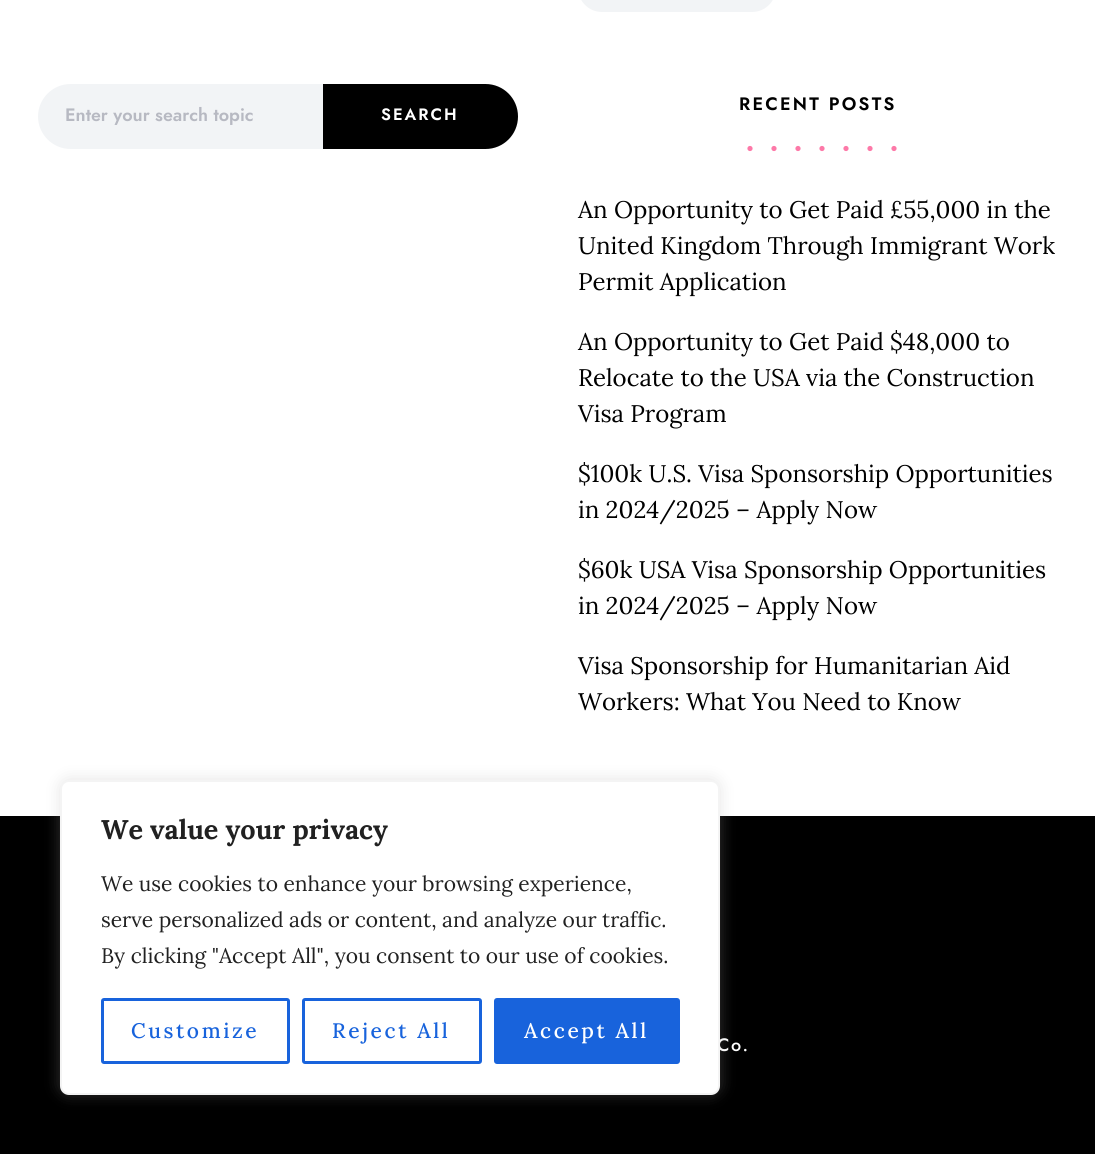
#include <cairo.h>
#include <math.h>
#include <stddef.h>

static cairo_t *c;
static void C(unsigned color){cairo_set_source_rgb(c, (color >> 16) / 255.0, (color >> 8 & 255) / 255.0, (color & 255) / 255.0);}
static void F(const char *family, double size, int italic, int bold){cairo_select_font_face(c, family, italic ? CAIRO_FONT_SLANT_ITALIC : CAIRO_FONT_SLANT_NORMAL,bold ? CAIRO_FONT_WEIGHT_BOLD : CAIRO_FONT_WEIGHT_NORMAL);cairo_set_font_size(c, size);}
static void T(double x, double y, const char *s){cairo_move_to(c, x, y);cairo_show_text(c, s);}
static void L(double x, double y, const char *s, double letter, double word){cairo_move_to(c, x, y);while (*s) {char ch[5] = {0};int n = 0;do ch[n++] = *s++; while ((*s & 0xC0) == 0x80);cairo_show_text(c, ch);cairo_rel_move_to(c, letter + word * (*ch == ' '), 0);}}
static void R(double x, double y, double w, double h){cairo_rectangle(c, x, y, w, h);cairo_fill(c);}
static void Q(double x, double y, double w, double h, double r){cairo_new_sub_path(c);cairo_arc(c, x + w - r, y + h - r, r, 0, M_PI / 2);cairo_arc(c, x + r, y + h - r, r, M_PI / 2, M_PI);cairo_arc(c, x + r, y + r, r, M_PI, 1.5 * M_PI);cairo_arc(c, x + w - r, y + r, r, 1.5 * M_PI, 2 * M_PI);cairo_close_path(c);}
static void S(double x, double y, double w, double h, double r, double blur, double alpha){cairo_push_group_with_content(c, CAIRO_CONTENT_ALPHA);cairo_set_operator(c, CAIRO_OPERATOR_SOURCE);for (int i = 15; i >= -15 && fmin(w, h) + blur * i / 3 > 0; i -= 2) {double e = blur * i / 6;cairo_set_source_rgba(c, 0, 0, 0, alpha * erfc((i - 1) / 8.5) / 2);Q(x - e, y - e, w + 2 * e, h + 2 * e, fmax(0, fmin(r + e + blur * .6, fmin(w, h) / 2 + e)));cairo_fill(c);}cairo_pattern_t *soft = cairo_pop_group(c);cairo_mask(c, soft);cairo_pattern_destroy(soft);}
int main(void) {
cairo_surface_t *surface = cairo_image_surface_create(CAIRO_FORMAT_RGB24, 1095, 1154);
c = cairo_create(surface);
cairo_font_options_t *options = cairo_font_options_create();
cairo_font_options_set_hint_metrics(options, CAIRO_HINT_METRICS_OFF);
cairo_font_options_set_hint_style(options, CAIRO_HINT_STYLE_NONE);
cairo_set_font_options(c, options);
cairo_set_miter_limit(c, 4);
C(0xffffff);
cairo_paint(c);
C(0xf2f4f6);
Q(578,-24,198,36,24);
cairo_fill(c);
cairo_new_path(c);
cairo_move_to(c,70.5,85.5);
cairo_line_to(c,321.5,85.5);
cairo_line_to(c,321.5,147.5);
cairo_line_to(c,70.5,147.5);
cairo_curve_to(c,53.5,147.5,39.5,133.5,39.5,116.5);
cairo_curve_to(c,39.5,99.5,53.5,85.5,70.5,85.5);
cairo_close_path(c);
cairo_fill_preserve(c);
cairo_set_line_width(c,3);
cairo_stroke(c);
F("Jost SemiBold",18,0,0);
C(0xb7b9c2);
T(65,121,"Enter your search topic");
C(0x000000);
cairo_new_path(c);
cairo_move_to(c,323,84);
cairo_line_to(c,485.5,84);
cairo_curve_to(c,503.5,84,518,98.5,518,116.5);
cairo_curve_to(c,518,134.5,503.5,149,485.5,149);
cairo_line_to(c,323,149);
cairo_close_path(c);
cairo_fill(c);
F("Jost SemiBold",16.5,0,0);
C(0xffffff);
L(381,120,"SEARCH",2,0);
F("Jost SemiBold",18,0,0);
C(0x000000);
L(739,110,"RECENT POSTS",2.25,0);
cairo_new_path(c);
cairo_move_to(c,750,148.5);
cairo_line_to(c,894.3,148.5);
C(0xfd79a8);
cairo_set_line_width(c,5.2);
cairo_set_line_cap(c,CAIRO_LINE_CAP_ROUND);
cairo_set_dash(c,(double[]){0,24},2,0);
cairo_stroke(c);
F("Lora",24,0,0);
C(0x000000);
T(578,218,"An Opportunity to Get Paid £55,000 in the");
T(578,254,"United Kingdom Through Immigrant Work");
T(578,290,"Permit Application");
T(578,350,"An Opportunity to Get Paid $48,000 to");
T(578,386,"Relocate to the USA via the Construction");
T(578,422,"Visa Program");
T(578,482,"$100k U.S. Visa Sponsorship Opportunities");
T(578,518,"in 2024/2025 – Apply Now");
T(578,578,"$60k USA Visa Sponsorship Opportunities");
T(578,614,"in 2024/2025 – Apply Now");
T(578,674,"Visa Sponsorship for Humanitarian Aid");
T(578,710,"Workers: What You Need to Know");
R(0,816,1095,338);
F("Jost Medium",18,0,0);
C(0xffffff);
L(717,1051,"Co.",1.5,0);
C(0xacabab);
S(60,779,660,315,9,7.5,.3);
C(0xffffff);
Q(61,781,658,313,8);
cairo_fill_preserve(c);
C(0xf4f4f4);
cairo_set_line_width(c,2);
cairo_set_line_cap(c,CAIRO_LINE_CAP_BUTT);
cairo_set_dash(c,NULL,0,0);
cairo_stroke(c);
F("Lora",27,0,1);
C(0x212121);
T(101,839,"We value your privacy");
F("Lora",21,0,0);
T(101,891,"We use cookies to enhance your browsing experience,");
T(101,927,"serve personalized ads or content, and analyze our traffic.");
T(101,963,"By clicking \"Accept All\", you consent to our use of cookies.");
Q(102.5,999.5,186,63,1.5);
C(0x1863dc);
cairo_set_line_width(c,3);
cairo_stroke(c);
F("Lora Medium",21,0,0);
L(131,1038,"Customize",2.6,0);
Q(303.5,999.5,177,63,1.5);
cairo_stroke(c);
L(332,1038,"Reject All",2.6,0);
Q(495.5,999.5,183,63,1.5);
cairo_fill_preserve(c);
cairo_stroke(c);
C(0xffffff);
L(524,1038,"Accept All",2.6,0);
cairo_surface_write_to_png(surface, "o.png");
cairo_font_options_destroy(options);
cairo_destroy(c);
cairo_surface_destroy(surface);
return 0;
}
